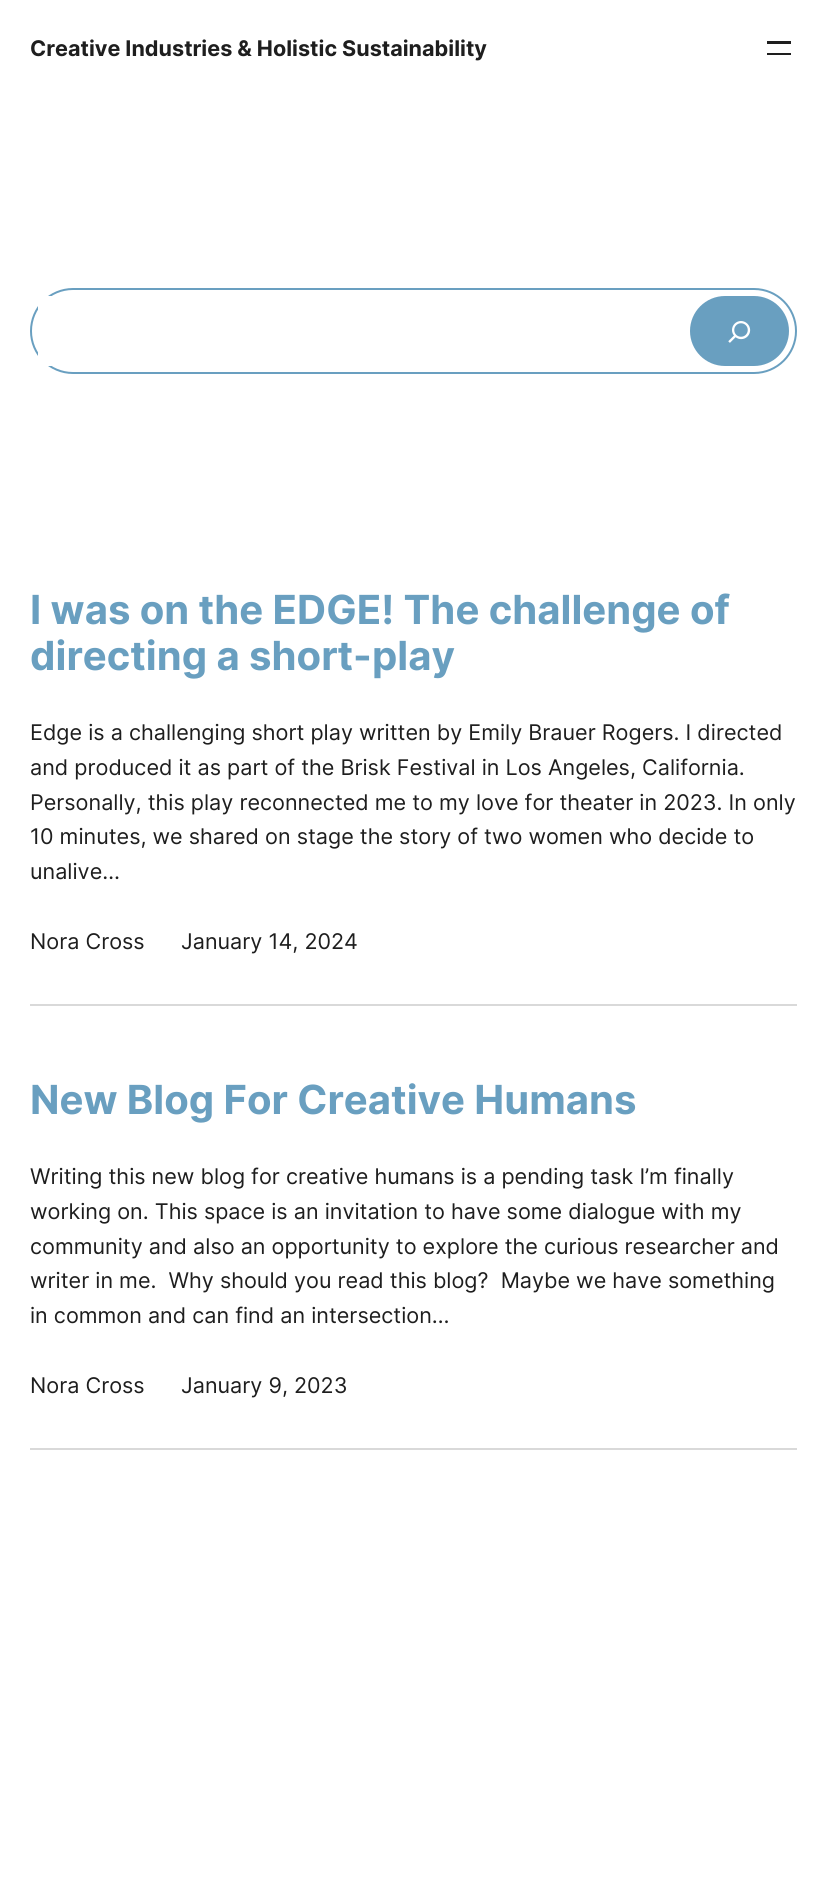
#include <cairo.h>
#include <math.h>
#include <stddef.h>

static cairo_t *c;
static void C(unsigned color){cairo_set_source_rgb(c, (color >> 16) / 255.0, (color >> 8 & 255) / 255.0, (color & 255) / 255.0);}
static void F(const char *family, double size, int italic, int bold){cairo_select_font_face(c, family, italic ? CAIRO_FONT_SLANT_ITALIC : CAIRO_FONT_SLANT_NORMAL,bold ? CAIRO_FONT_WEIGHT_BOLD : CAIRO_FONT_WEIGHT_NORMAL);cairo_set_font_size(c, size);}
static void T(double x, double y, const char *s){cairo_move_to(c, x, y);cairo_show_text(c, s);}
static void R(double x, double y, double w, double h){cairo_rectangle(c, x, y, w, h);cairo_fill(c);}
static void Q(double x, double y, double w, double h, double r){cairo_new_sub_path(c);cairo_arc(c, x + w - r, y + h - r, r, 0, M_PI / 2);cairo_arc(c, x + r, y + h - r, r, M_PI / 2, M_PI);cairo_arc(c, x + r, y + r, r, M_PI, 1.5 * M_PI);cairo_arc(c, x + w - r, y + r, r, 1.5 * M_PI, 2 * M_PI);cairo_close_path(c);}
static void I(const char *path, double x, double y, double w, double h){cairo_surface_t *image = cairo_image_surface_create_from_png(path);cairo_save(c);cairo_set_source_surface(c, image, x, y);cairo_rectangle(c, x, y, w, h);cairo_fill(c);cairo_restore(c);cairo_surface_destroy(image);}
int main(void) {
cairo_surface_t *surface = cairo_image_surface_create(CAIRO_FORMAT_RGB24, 826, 1888);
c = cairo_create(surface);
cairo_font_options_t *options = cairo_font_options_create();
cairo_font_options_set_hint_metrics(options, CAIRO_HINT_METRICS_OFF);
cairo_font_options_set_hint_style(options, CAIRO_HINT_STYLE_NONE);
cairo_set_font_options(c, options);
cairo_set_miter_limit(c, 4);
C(0xffffff);
cairo_paint(c);
F("Inter",21.6,0,1);
C(0x1e1e1e);
T(30,56,"Creative Industries & Holistic Sustainability");
R(767,41,24,3);
R(767,53,24,2);
Q(31,289,765,84,42);
C(0x699fc0);
cairo_stroke(c);
C(0xffffff);
Q(38,296,637,70,6);
cairo_fill(c);
C(0x699fc0);
Q(690,296,99,70,35);
cairo_fill(c);
I("1.png",728,321,23,22);
F("Inter",40.1,0,1);
T(30,624,"I was on the EDGE! The challenge of");
T(30,670,"directing a short-play");
F("Inter",21.6,0,0);
C(0x1e1e1e);
T(30,740,"Edge is a challenging short play written by Emily Brauer Rogers. I directed");
T(30,775,"and produced it as part of the Brisk Festival in Los Angeles, California.");
T(30,810,"Personally, this play reconnected me to my love for theater in 2023. In only");
T(30,844,"10 minutes, we shared on stage the story of two women who decide to");
T(30,879,"unalive…");
T(30,949,"Nora Cross");
T(181,949,"January 14, 2024");
C(0xd9d9d9);
R(30,1004,767,2);
F("Inter",40.1,0,1);
C(0x699fc0);
T(30,1114,"New Blog For Creative Humans");
F("Inter",21.6,0,0);
C(0x1e1e1e);
T(30,1184,"Writing this new blog for creative humans is a pending task I’m finally");
T(30,1219,"working on. This space is an invitation to have some dialogue with my");
T(30,1254,"community and also an opportunity to explore the curious researcher and");
T(30,1288,"writer in me.  Why should you read this blog?  Maybe we have something");
T(30,1323,"in common and can find an intersection…");
T(30,1393,"Nora Cross");
T(181,1393,"January 9, 2023");
C(0xd9d9d9);
R(30,1448,767,2);
cairo_surface_write_to_png(surface, "o.png");
cairo_font_options_destroy(options);
cairo_destroy(c);
cairo_surface_destroy(surface);
return 0;
}
